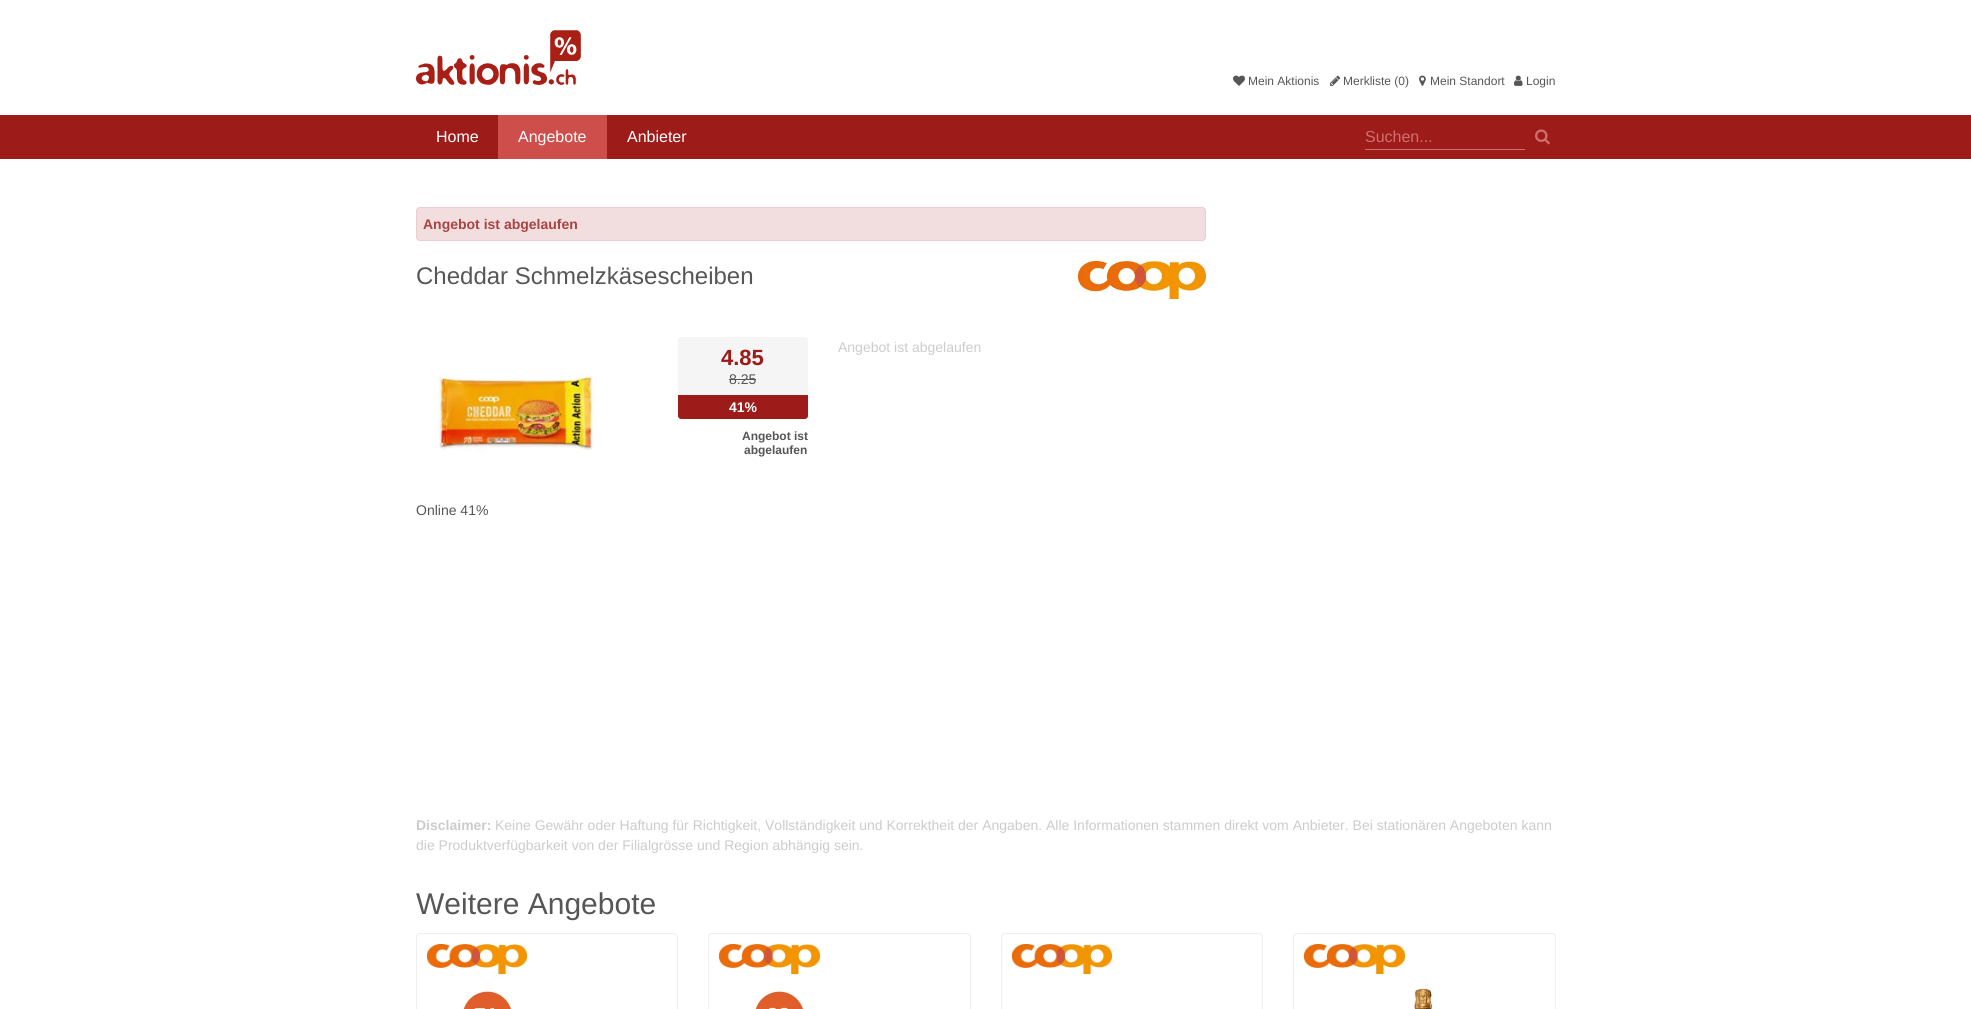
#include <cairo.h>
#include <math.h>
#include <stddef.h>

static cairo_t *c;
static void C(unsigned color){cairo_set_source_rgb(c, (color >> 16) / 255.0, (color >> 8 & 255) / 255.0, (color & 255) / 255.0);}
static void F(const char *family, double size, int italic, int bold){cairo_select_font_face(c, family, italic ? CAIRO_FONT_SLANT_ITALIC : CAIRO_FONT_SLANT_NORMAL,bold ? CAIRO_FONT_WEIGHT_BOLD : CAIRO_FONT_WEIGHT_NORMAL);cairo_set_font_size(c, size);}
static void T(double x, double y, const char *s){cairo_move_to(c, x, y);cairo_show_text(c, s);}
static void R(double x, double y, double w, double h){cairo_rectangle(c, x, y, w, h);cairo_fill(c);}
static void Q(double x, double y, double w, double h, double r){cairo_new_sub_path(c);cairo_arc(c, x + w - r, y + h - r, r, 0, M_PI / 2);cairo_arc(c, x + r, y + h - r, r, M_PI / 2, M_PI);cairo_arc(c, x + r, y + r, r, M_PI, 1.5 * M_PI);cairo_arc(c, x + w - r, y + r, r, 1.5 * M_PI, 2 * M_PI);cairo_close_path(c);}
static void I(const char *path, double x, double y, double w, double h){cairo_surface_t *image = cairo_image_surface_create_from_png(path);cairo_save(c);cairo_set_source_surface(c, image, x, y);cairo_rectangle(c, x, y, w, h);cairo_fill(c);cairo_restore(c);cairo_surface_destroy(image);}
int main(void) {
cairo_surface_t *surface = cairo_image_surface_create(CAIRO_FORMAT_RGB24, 1971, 1009);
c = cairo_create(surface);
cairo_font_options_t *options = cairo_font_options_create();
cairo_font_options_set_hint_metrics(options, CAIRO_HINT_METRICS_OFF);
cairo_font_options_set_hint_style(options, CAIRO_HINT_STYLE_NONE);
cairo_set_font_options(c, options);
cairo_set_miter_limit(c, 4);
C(0xffffff);
cairo_paint(c);
I("1.png",416,30,165,55);
I("2.png",1233,75,12,11);
F("Liberation Sans",12,0,0);
C(0x565656);
T(1248,85,"Mein Aktionis");
I("3.png",1330,75,11,11);
T(1343,85,"Merkliste (0)");
I("4.png",1419,75,7,11);
T(1430,85,"Mein Standort");
I("5.png",1514,75,9,11);
T(1526,85,"Login");
C(0x9d1b19);
R(0,115,1971,44);
F("Liberation Sans",16,0,0);
C(0xffffff);
T(436,142,"Home");
C(0xce4e4b);
R(498,115,109,44);
C(0xffffff);
T(518,142,"Angebote");
T(627,142,"Anbieter");
C(0xce716e);
R(1365,149,160,1);
T(1365,142,"Suchen...");
I("6.png",1535,129,15,16);
C(0xf2dede);
Q(416.5,207.5,789,33,3.5);
cairo_fill_preserve(c);
C(0xebccd1);
cairo_set_line_width(c,1);
cairo_stroke(c);
F("Liberation Sans",14,0,1);
C(0xa94442);
T(423,229,"Angebot ist abgelaufen");
F("Liberation Sans",24,0,0);
C(0x565656);
T(416,284,"Cheddar Schmelzkäsescheiben");
I("7.png",1078,261,128,38);
C(0xf5f5f5);
cairo_new_path(c);
cairo_move_to(c,681,337);
cairo_line_to(c,805,337);
cairo_curve_to(c,806.5,337,808,338.5,808,340);
cairo_line_to(c,808,371);
cairo_line_to(c,678,371);
cairo_line_to(c,678,340);
cairo_curve_to(c,678,338.5,679.5,337,681,337);
cairo_close_path(c);
cairo_fill(c);
F("Liberation Sans",22,0,1);
C(0x9d1b19);
T(721,365,"4.85");
C(0xf5f5f5);
R(678,371,130,24);
F("Liberation Sans",14,0,0);
C(0x565656);
T(729,384,"8.25");
R(729,379,27,1);
C(0x9d1b19);
cairo_new_path(c);
cairo_move_to(c,678,395);
cairo_line_to(c,808,395);
cairo_line_to(c,808,416);
cairo_curve_to(c,808,417.5,806.5,419,805,419);
cairo_line_to(c,681,419);
cairo_curve_to(c,679.5,419,678,417.5,678,416);
cairo_close_path(c);
cairo_fill(c);
F("Liberation Sans",14,0,1);
C(0xffffff);
T(729,412,"41%");
F("Liberation Sans",12,0,1);
C(0x565656);
T(742,440,"Angebot ist");
T(744,454,"abgelaufen");
F("Liberation Sans",14,0,0);
C(0xcccccc);
T(838,352,"Angebot ist abgelaufen");
I("8.png",438,373,159,80);
C(0x565656);
T(416,515,"Online 41%");
F("Liberation Sans",14,0,1);
C(0xcccccc);
T(416,830,"Disclaimer:");
F("Liberation Sans",14,0,0);
T(495,830,"Keine Gewähr oder Haftung für Richtigkeit, Vollständigkeit und Korrektheit der Angaben. Alle Informationen stammen direkt vom Anbieter. Bei stationären Angeboten kann");
T(416,850,"die Produktverfügbarkeit von der Filialgrösse und Region abhängig sein.");
F("Liberation Sans",30,0,0);
C(0x565656);
T(416,914,"Weitere Angebote");
Q(416.5,933.5,261,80,3.5);
C(0xeeeeee);
cairo_stroke(c);
I("9.png",427,944,100,30);
I("10.png",461,988,52,21);
Q(708.5,933.5,262,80,3.5);
cairo_stroke(c);
I("11.png",719,944,101,30);
I("12.png",753,990,52,19);
Q(1001.5,933.5,261,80,3.5);
cairo_stroke(c);
I("9.png",1012,944,100,30);
Q(1293.5,933.5,262,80,3.5);
cairo_stroke(c);
I("11.png",1304,944,101,30);
I("13.png",1414,988,20,21);
cairo_surface_write_to_png(surface, "o.png");
cairo_font_options_destroy(options);
cairo_destroy(c);
cairo_surface_destroy(surface);
return 0;
}
